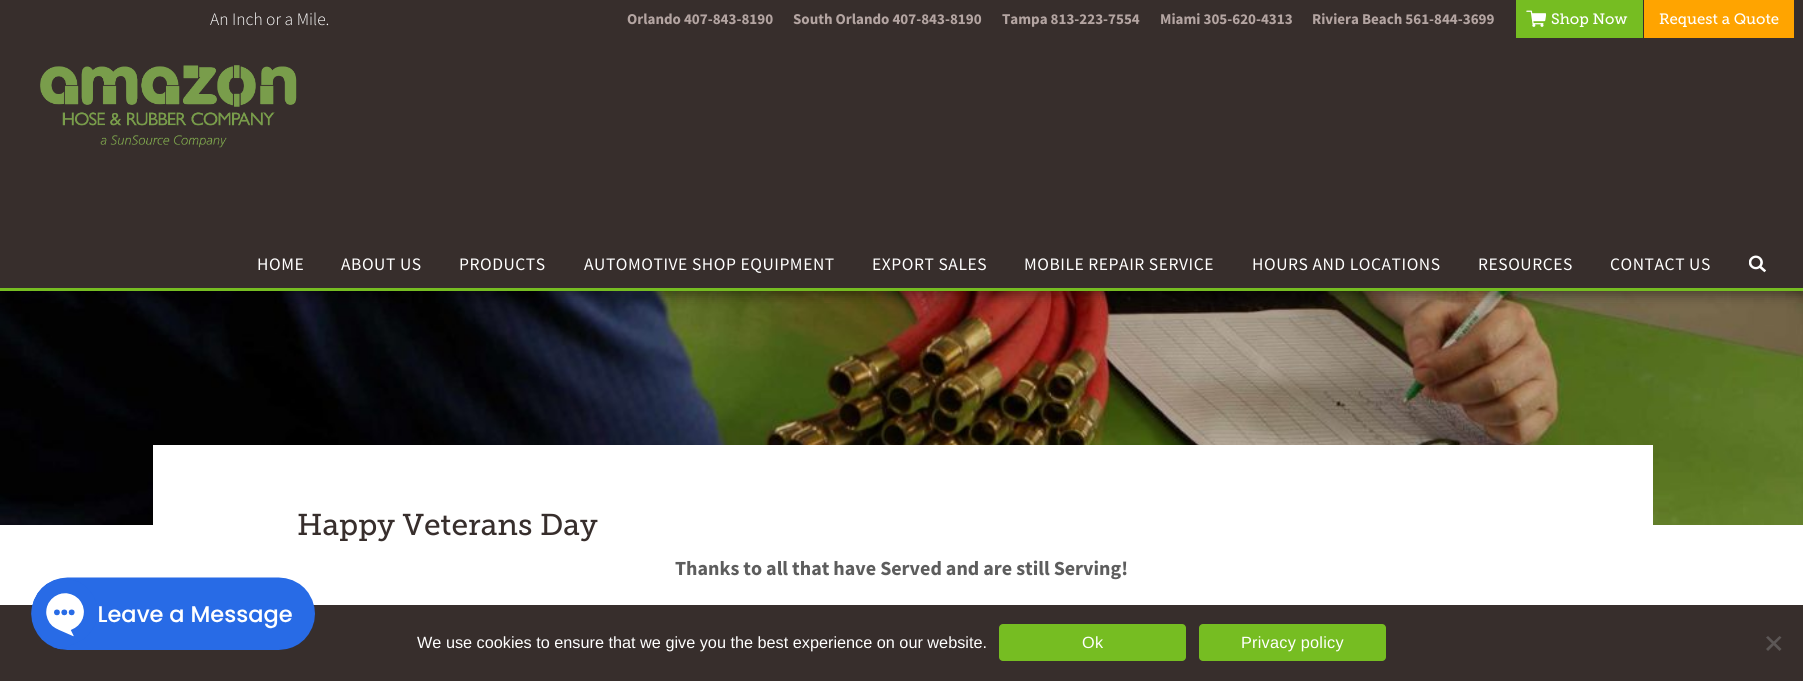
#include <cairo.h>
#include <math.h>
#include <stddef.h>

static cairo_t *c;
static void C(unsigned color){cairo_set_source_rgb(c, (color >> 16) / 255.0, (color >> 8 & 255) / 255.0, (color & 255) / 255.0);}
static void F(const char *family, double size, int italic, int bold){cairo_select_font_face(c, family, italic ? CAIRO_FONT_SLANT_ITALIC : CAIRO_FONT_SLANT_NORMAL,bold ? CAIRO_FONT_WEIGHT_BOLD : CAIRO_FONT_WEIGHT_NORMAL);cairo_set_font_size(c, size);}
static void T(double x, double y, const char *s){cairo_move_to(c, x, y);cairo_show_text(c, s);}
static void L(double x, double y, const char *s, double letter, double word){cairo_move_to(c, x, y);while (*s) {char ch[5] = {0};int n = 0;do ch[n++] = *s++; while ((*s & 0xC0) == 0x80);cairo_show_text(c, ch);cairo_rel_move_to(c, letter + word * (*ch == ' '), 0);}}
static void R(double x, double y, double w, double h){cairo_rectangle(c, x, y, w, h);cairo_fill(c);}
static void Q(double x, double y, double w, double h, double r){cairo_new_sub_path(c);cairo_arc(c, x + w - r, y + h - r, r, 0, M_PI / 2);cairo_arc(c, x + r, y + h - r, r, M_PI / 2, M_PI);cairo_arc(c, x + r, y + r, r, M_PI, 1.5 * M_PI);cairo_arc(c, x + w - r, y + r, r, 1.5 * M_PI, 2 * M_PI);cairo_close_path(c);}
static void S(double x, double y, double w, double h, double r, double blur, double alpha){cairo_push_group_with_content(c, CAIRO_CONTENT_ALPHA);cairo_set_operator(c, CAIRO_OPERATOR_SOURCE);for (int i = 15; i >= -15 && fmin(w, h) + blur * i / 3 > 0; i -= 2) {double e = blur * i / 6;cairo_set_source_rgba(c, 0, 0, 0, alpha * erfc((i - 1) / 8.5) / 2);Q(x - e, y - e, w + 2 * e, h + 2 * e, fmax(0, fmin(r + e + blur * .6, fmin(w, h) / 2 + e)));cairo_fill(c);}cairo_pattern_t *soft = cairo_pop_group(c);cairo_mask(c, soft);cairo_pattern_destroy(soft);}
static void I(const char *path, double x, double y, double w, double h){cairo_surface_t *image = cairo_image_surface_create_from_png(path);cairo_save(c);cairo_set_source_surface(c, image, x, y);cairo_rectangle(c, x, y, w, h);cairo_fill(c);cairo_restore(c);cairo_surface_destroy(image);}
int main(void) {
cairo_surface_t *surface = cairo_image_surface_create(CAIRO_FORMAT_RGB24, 1803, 681);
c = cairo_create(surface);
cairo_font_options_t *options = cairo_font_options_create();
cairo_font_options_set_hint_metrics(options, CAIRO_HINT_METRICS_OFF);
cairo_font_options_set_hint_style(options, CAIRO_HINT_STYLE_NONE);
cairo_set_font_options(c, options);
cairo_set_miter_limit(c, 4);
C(0xffffff);
cairo_paint(c);
I("4.png",0,291,1803,234);
C(0x000000);
S(0,5,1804,290,0,6,.4);
C(0x372e2c);
R(0,0,1803,288);
C(0x76bd22);
R(0,288,1803,3);
F("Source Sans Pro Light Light",17.5,0,0);
C(0xffffff);
T(210,25,"An Inch or a Mile.");
F("Source Sans Pro",15,0,1);
C(0xb4a5a2);
T(627,24,"Orlando 407-843-8190");
T(793,24,"South Orlando 407-843-8190");
T(1002,24,"Tampa 813-223-7554");
T(1160,24,"Miami 305-620-4313");
T(1312,24,"Riviera Beach 561-844-3699");
C(0x76bd22);
R(1516,0,127,38);
I("1.png",1526,10,20,17);
F("Museo Slab",15,0,0);
C(0xffffff);
T(1551,24,"Shop Now");
C(0xffa400);
R(1644,0,150,38);
C(0xffffff);
T(1659,24,"Request a Quote");
I("2.png",40,65,257,83);
F("Source Sans Pro",17.5,0,0);
L(257,270,"HOME",.55,0);
L(341,270,"ABOUT US",.55,0);
L(459,270,"PRODUCTS",.55,0);
L(584,270,"AUTOMOTIVE SHOP EQUIPMENT",.55,0);
L(872,270,"EXPORT SALES",.55,0);
L(1024,270,"MOBILE REPAIR SERVICE",.55,0);
L(1252,270,"HOURS AND LOCATIONS",.55,0);
L(1478,270,"RESOURCES",.55,0);
L(1610,270,"CONTACT US",.55,0);
I("3.png",1749,255,17,18);
R(153,445,1500,80);
F("Museo Slab",30,0,0);
C(0x372e2c);
T(297,535,"Happy Veterans Day");
F("Source Sans Pro",20,0,1);
C(0x5d5d5d);
T(675,575,"Thanks to all that have Served and are still Serving!");
C(0x372e2c);
R(0,605,1803,76);
I("5.png",31,577,284,73);
F("Liberation Sans",16.25,0,0);
C(0xffffff);
T(417,648,"We use cookies to ensure that we give you the best experience on our website.");
C(0x76bd22);
Q(999,624,187,37,4);
cairo_fill(c);
C(0xffffff);
L(1082,648,"Ok",.25,0);
C(0x76bd22);
Q(1199,624,187,37,4);
cairo_fill(c);
C(0xffffff);
L(1241,648,"Privacy policy",.25,0);
C(0x5c5756);
cairo_new_path(c);
cairo_move_to(c,1779.5,636);
cairo_line_to(c,1781.5,637.5);
cairo_line_to(c,1768,651);
cairo_line_to(c,1766,649);
cairo_close_path(c);
cairo_fill(c);
cairo_new_path(c);
cairo_move_to(c,1766,637.5);
cairo_line_to(c,1768,636);
cairo_line_to(c,1781.5,649);
cairo_line_to(c,1779.5,651);
cairo_close_path(c);
cairo_fill(c);
cairo_surface_write_to_png(surface, "o.png");
cairo_font_options_destroy(options);
cairo_destroy(c);
cairo_surface_destroy(surface);
return 0;
}
